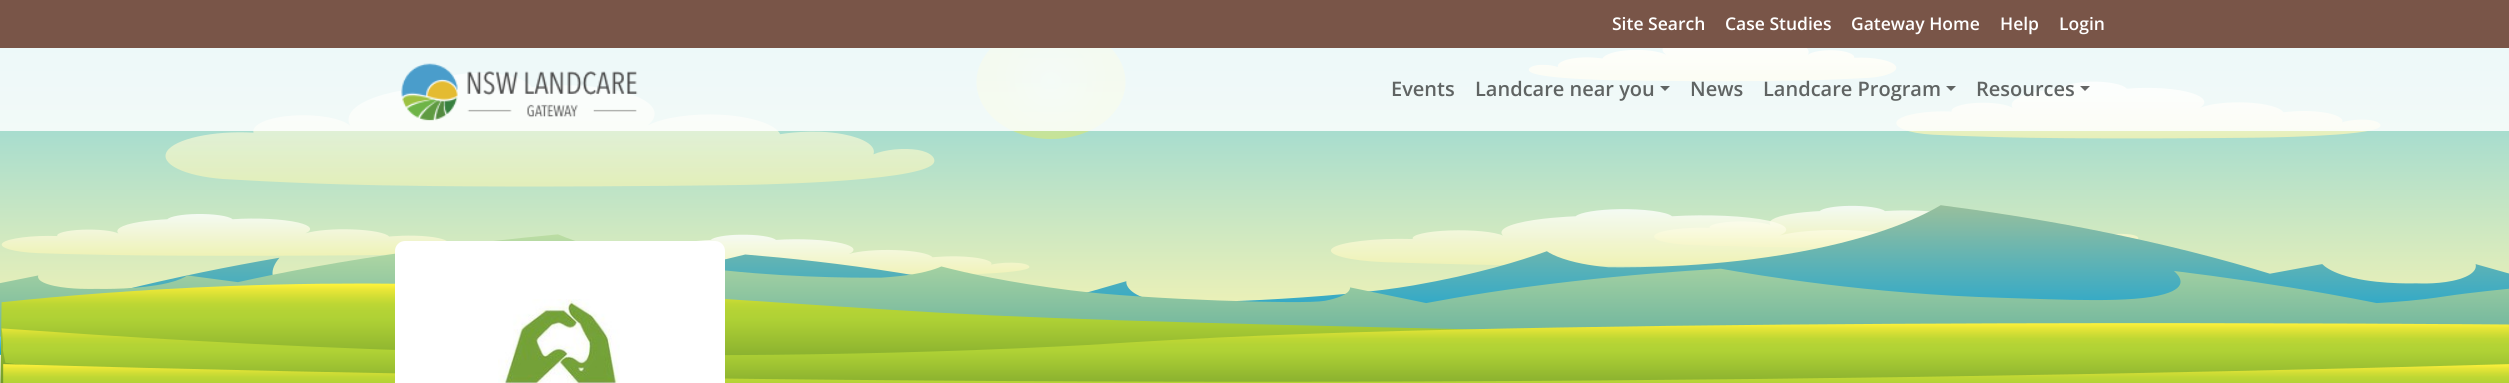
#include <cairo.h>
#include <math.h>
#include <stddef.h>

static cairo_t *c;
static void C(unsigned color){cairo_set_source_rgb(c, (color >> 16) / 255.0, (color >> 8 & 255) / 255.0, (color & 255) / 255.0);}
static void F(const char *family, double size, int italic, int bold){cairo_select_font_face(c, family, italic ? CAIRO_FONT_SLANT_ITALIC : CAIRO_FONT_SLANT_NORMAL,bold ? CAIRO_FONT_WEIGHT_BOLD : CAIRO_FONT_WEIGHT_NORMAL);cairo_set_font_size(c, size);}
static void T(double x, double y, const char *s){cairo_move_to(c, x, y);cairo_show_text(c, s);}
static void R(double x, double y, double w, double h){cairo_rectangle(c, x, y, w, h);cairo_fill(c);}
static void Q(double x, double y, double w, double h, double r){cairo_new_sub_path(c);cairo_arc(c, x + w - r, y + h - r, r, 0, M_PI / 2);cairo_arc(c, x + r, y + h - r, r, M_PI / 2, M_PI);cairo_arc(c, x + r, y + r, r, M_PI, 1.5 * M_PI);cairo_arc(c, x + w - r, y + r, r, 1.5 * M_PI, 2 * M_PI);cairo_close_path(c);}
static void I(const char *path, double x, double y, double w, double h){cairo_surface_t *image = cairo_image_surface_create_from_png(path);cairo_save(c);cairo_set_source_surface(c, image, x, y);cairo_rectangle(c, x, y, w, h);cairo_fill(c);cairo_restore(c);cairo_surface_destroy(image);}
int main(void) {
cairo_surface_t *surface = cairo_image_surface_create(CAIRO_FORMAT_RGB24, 2509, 383);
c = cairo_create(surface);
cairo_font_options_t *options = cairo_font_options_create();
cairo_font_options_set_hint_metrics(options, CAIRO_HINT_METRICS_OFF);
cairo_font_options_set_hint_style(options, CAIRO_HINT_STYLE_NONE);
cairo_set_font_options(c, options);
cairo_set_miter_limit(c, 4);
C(0xffffff);
cairo_paint(c);
C(0x795548);
R(0,0,2509,48);
F("Open Sans SemiBold",17.5,0,0);
C(0xffffff);
T(1612,30,"Site Search");
T(1725,30,"Case Studies");
T(1851,30,"Gateway Home");
T(2000,30,"Help");
T(2059,30,"Login");
I("1.png",0,48,2509,335);
Q(395,241,330,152,10);
cairo_fill(c);
I("2.png",498,299,122,84);
cairo_set_source_rgba(c,1,1,1,0.85);
R(0,48,2509,83);
I("3.png",401,63,237,58);
F("Open Sans SemiBold",20,0,0);
C(0x606463);
T(1391,96,"Events");
T(1475,96,"Landcare near you");
cairo_new_path(c);
cairo_move_to(c,1660,86);
cairo_line_to(c,1670,86);
cairo_line_to(c,1665,91);
cairo_close_path(c);
cairo_fill(c);
T(1690,96,"News");
T(1763,96,"Landcare Program");
cairo_new_path(c);
cairo_move_to(c,1946,86);
cairo_line_to(c,1956,86);
cairo_line_to(c,1951,91);
cairo_close_path(c);
cairo_fill(c);
T(1976,96,"Resources");
C(0x656665);
cairo_new_path(c);
cairo_move_to(c,2080,86);
cairo_line_to(c,2090,86);
cairo_line_to(c,2085,91);
cairo_close_path(c);
cairo_fill(c);
cairo_surface_write_to_png(surface, "o.png");
cairo_font_options_destroy(options);
cairo_destroy(c);
cairo_surface_destroy(surface);
return 0;
}
